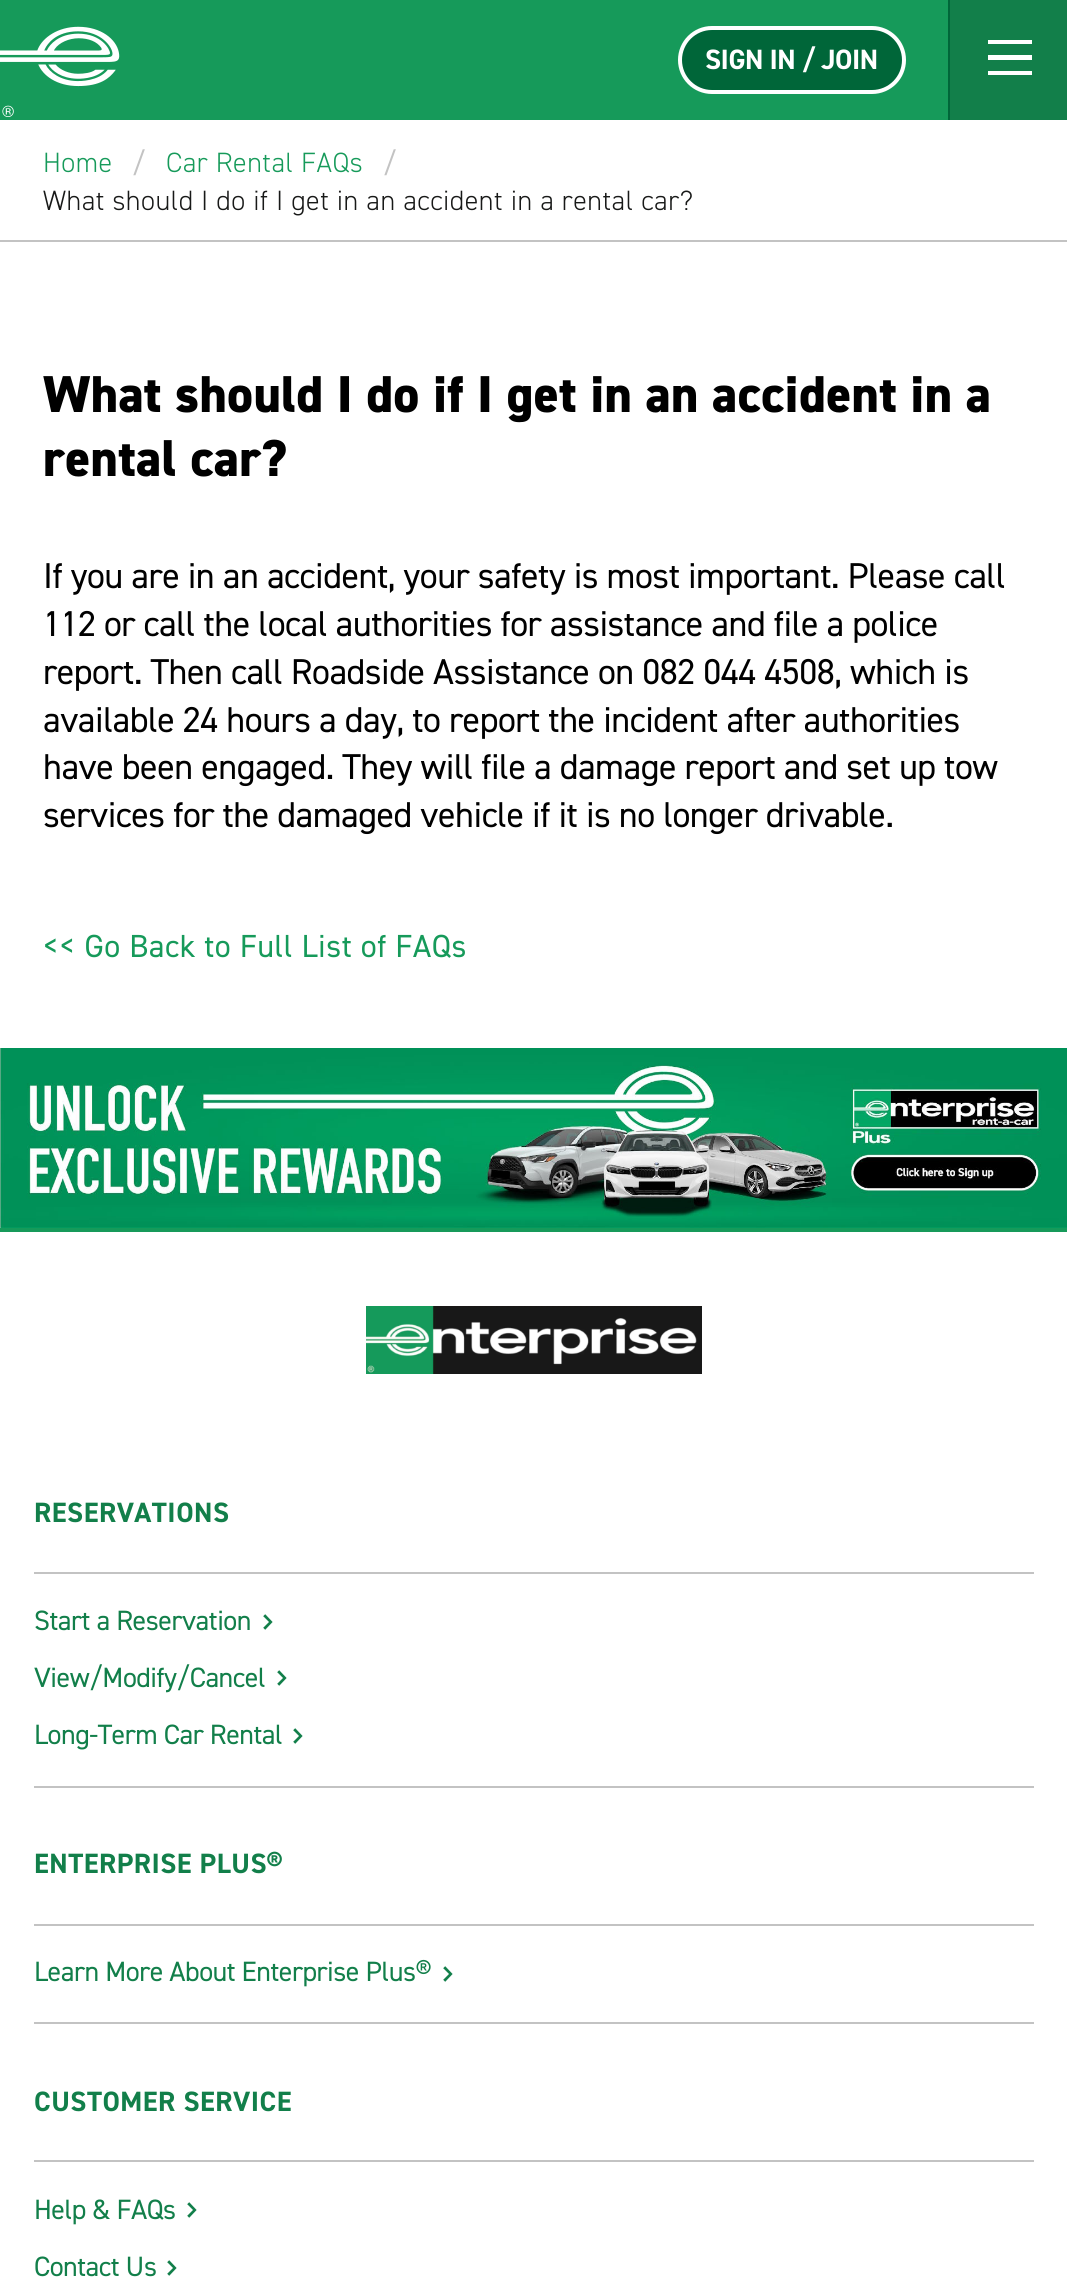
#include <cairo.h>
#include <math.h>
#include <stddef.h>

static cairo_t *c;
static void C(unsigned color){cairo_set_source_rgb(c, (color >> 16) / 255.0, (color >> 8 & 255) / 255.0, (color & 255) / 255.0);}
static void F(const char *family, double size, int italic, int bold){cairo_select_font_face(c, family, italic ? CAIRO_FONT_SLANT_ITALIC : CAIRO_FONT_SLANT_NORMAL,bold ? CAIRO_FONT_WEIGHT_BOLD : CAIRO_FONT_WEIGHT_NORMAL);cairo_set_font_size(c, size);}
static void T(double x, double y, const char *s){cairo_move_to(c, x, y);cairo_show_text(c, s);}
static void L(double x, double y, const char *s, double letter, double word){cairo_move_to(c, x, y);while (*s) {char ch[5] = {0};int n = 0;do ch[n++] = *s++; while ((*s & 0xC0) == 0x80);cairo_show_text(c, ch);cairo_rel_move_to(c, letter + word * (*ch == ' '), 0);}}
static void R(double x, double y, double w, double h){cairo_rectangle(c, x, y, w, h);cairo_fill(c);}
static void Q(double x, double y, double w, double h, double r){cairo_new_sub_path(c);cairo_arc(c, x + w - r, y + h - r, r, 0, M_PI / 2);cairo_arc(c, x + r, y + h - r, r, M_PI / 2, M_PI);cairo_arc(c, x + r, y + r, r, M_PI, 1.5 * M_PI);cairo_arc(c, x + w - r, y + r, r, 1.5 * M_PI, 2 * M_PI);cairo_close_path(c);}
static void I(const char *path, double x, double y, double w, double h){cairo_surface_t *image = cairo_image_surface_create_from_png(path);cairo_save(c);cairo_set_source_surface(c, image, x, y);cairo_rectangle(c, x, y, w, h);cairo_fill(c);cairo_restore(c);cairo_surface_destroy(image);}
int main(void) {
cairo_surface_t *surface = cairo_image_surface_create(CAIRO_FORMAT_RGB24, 1067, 2285);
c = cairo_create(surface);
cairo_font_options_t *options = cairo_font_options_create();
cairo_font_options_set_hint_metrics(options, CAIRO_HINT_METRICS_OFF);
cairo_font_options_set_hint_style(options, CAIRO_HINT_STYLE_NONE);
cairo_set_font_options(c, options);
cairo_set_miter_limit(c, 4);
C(0xffffff);
cairo_paint(c);
C(0x169a5a);
R(0,0,948,120);
I("1.png",0,26,120,91);
C(0x006639);
Q(680,28,224,64,32);
cairo_fill_preserve(c);
C(0xffffff);
cairo_set_line_width(c,4);
cairo_stroke(c);
F("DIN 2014",28,0,1);
L(705,69,"SIGN IN / JOIN",-.5,0);
C(0x127f4a);
R(950,0,117,120);
C(0x006639);
R(948,0,2,120);
C(0xffffff);
R(988,71,44,4);
R(988,55,44,5);
R(988,40,44,4);
C(0xc3c3c3);
R(0,240,1067,2);
F("DIN 2014 Light",28,0,0);
C(0x169a5a);
L(43,172,"Home",.5,0);
F("DIN 2014",28,0,0);
C(0xc3c3c3);
T(132,172,"/");
F("DIN 2014 Light",28,0,0);
C(0x169a5a);
L(166,172,"Car Rental FAQs",.5,0);
F("DIN 2014",28,0,0);
C(0xc3c3c3);
T(383,172,"/");
F("DIN 2014 Light",28,0,0);
C(0x181918);
L(43,210,"What should I do if I get in an accident in a rental car?",.5,0);
F("DIN 2014 ExtraBold",52,0,0);
C(0x000000);
L(43,412,"What should I do if I get in an accident in a",.3,0);
L(43,476,"rental car?",.3,0);
F("DIN 2014",36,0,0);
L(43,588,"If you are in an accident, your safety is most important. Please call",-.5,0);
L(43,636,"112 or call the local authorities for assistance and file a police",-.5,0);
L(43,684,"report. Then call Roadside Assistance on 082 044 4508, which is",-.5,0);
L(43,732,"available 24 hours a day, to report the incident after authorities",-.5,0);
L(43,779,"have been engaged. They will file a damage report and set up tow",-.5,0);
L(43,827,"services for the damaged vehicle if it is no longer drivable.",-.5,0);
F("DIN 2014",32,0,0);
C(0x169a5a);
L(43,957,"<< Go Back to Full List of FAQs",.5,0);
I("2.png",0,1048,1067,180);
R(0,1228,1067,4);
I("3.png",366,1306,336,68);
C(0xc3c3c3);
R(34,1572,1000,2);
F("DIN 2014",28,0,1);
C(0x127f4a);
L(34,1522,"RESERVATIONS",.5,0);
C(0xc3c3c3);
R(34,1786,1000,2);
F("DIN 2014",28,0,0);
C(0x127f4a);
L(34,1630,"Start a Reservation",-.5,0);
I("4.png",263,1614,10,16);
L(34,1687,"View/Modify/Cancel",-.5,0);
I("4.png",277,1670,10,16);
L(34,1744,"Long-Term Car Rental",-.5,0);
I("4.png",293,1728,10,16);
C(0xc3c3c3);
R(34,1924,1000,2);
F("DIN 2014",28,0,1);
C(0x127f4a);
L(34,1873,"ENTERPRISE PLUS®",.5,0);
C(0xc3c3c3);
R(34,2022,1000,2);
F("DIN 2014",28,0,0);
C(0x127f4a);
L(34,1981,"Learn More About Enterprise Plus®",-.5,0);
I("4.png",443,1966,10,16);
C(0xc3c3c3);
R(34,2160,1000,2);
F("DIN 2014",28,0,1);
C(0x127f4a);
L(34,2111,"CUSTOMER SERVICE",.5,0);
F("DIN 2014",28,0,0);
L(34,2219,"Help & FAQs",-.5,0);
I("4.png",187,2202,10,16);
L(34,2276,"Contact Us",-.5,0);
I("4.png",167,2260,10,16);
cairo_surface_write_to_png(surface, "o.png");
cairo_font_options_destroy(options);
cairo_destroy(c);
cairo_surface_destroy(surface);
return 0;
}
